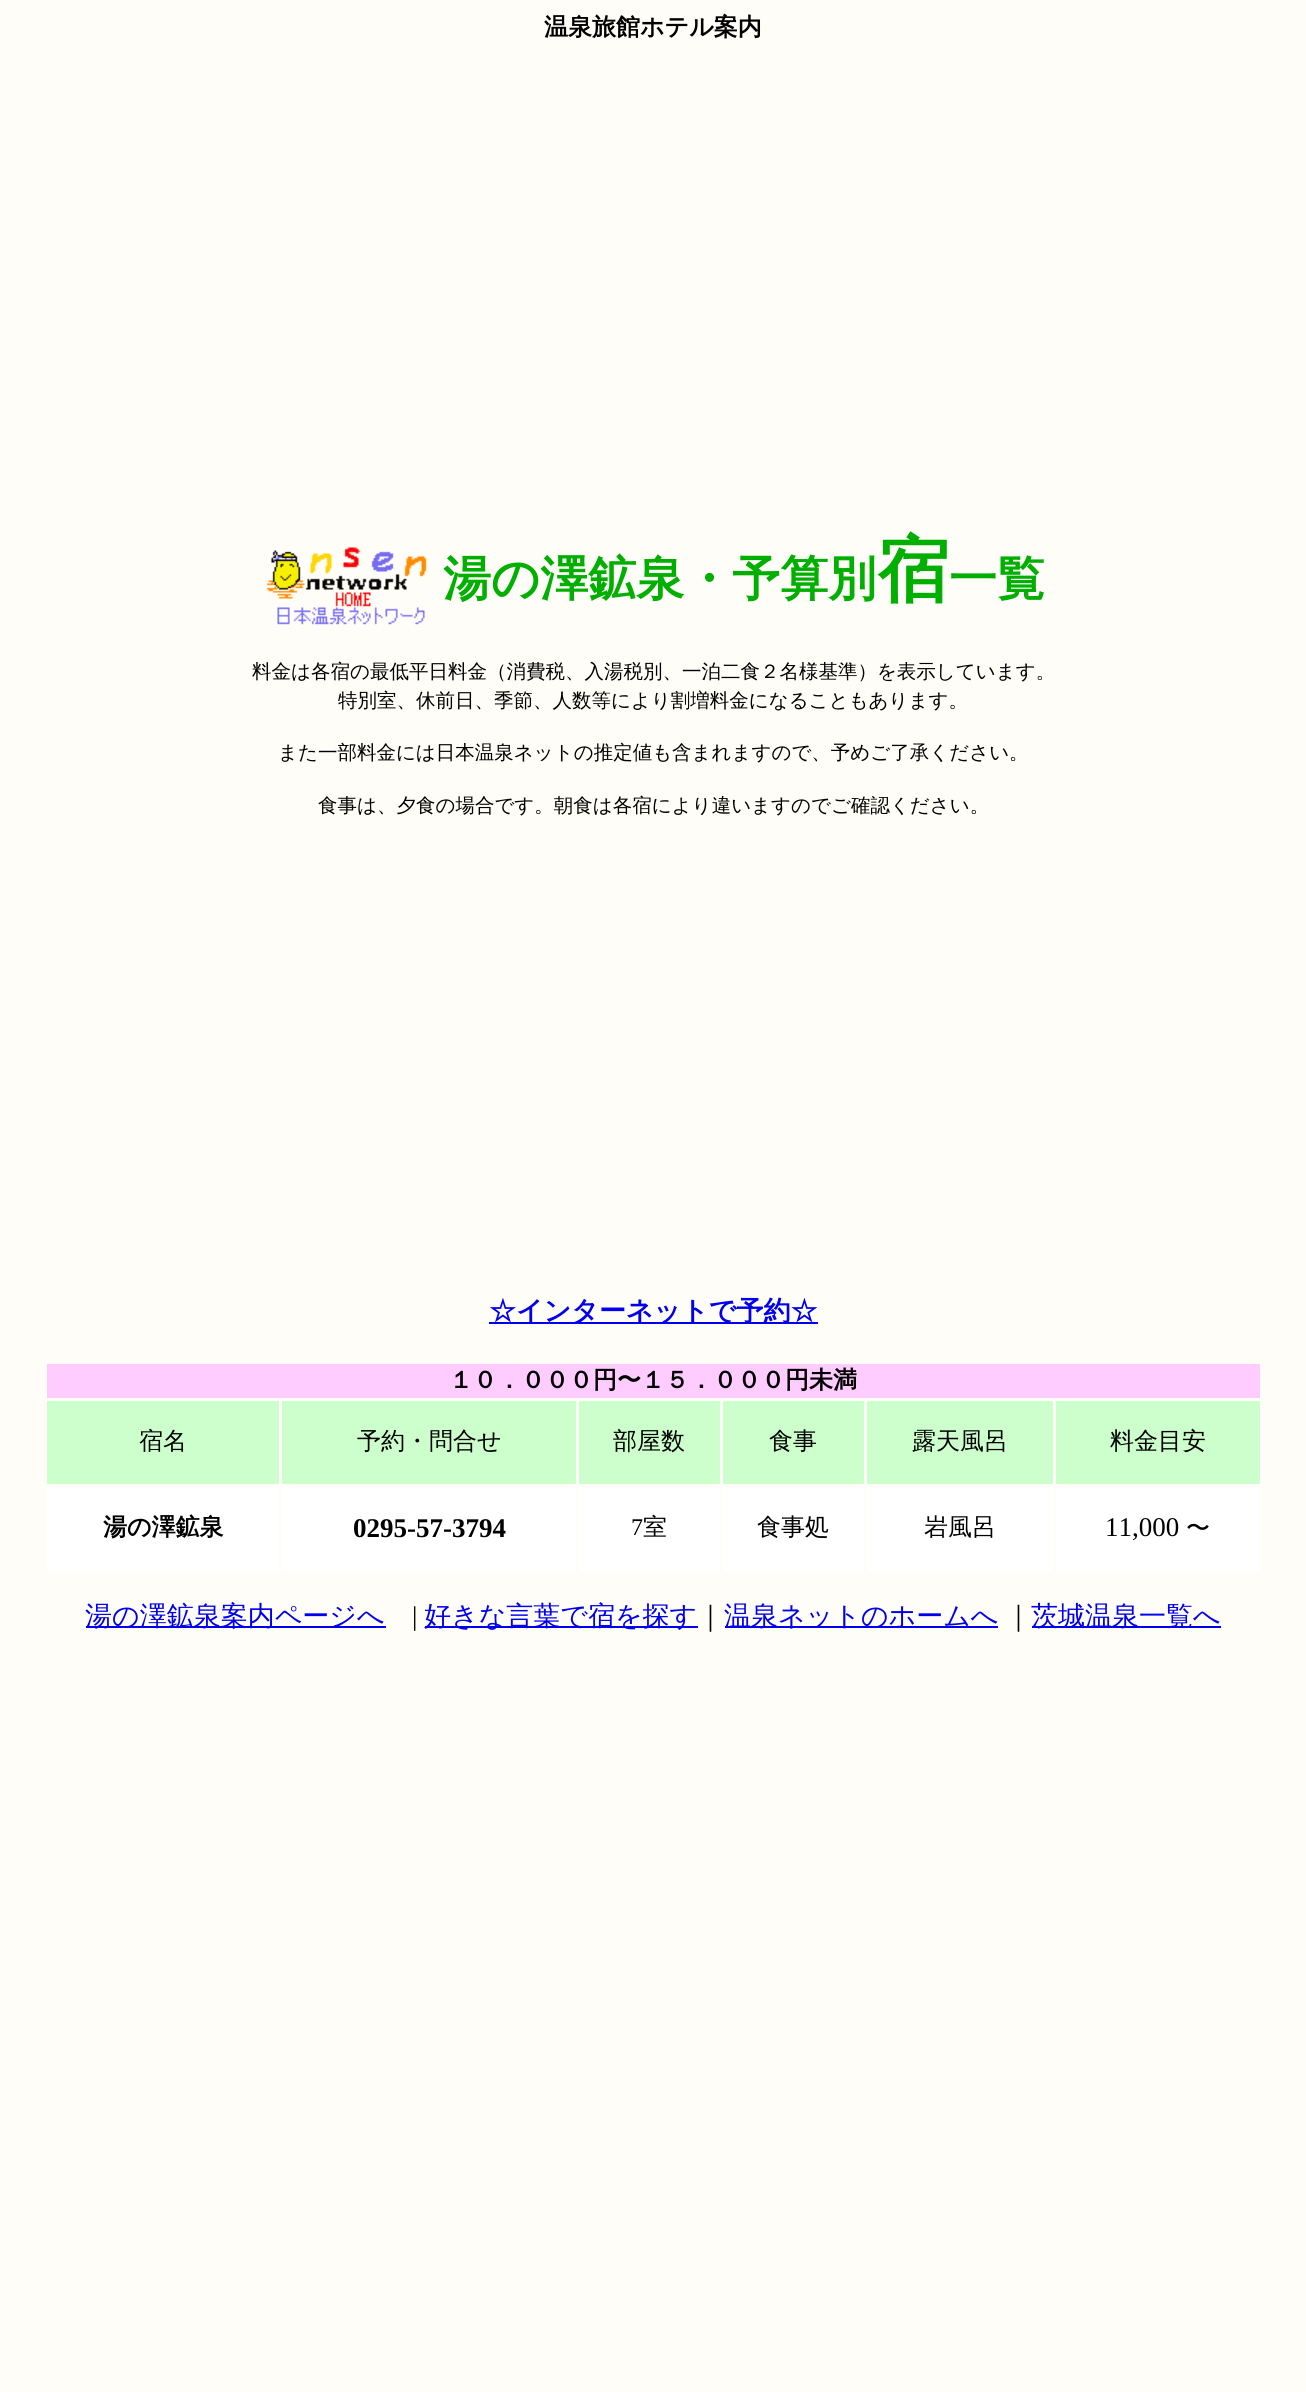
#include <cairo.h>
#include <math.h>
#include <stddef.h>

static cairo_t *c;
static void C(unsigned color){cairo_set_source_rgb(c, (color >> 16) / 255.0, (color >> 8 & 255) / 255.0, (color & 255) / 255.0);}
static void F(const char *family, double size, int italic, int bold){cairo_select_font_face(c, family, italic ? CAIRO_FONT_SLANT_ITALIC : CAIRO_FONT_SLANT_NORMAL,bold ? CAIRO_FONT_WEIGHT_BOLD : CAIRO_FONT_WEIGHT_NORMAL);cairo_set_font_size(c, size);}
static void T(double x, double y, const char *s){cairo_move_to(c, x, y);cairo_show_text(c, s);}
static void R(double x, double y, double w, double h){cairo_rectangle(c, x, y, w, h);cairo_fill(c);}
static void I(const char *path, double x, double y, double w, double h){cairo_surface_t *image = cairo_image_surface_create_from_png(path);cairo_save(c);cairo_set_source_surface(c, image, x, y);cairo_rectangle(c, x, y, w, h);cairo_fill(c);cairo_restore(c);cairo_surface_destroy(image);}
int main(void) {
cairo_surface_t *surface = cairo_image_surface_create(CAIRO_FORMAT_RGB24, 1306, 2392);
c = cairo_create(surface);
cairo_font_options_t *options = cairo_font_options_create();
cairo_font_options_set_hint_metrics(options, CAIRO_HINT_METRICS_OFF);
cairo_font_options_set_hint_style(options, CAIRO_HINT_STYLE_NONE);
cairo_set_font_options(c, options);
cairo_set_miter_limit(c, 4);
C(0xfffdf7);
cairo_paint(c);
F("WenQuanYi Zen Hei",24,0,1);
C(0x000000);
T(544,35,"温泉旅館ホテル案内");
I("1.png",266,547,161,78);
F("WenQuanYi Zen Hei",48,0,1);
C(0x00af00);
T(443,595,"湯の澤鉱泉・予算別");
F("WenQuanYi Zen Hei",72,0,1);
T(877,595,"宿");
F("WenQuanYi Zen Hei",48,0,1);
T(949,595,"一覧");
F("WenQuanYi Zen Hei Medium",19.5,0,0);
C(0x000000);
T(252,678,"料金は各宿の最低平日料金（消費税、入湯税別、一泊二食２名様基準）を表示しています。");
T(338,707,"特別室、休前日、季節、人数等により割増料金になることもあります。");
T(278,759,"また一部料金には日本温泉ネットの推定値も含まれますので、予めご了承ください。");
T(318,812,"食事は、夕食の場合です。朝食は各宿により違いますのでご確認ください。");
C(0x0000ee);
R(489,1322,329,2);
F("WenQuanYi Zen Hei",27,0,1);
T(489,1320,"☆インターネットで予約☆");
C(0xffccff);
R(47,1364,1213,34);
F("WenQuanYi Zen Hei",24,0,1);
C(0x000000);
T(449,1388,"１０．０００円〜１５．０００円未満");
C(0xccffcc);
R(47,1401,232,83);
F("WenQuanYi Zen Hei Medium",24,0,0);
C(0x000000);
T(139,1449,"宿名");
C(0xccffcc);
R(282,1401,294,83);
C(0x000000);
T(357,1449,"予約・問合せ");
C(0xccffcc);
R(579,1401,141,83);
C(0x000000);
T(613,1449,"部屋数");
C(0xccffcc);
R(723,1401,141,83);
C(0x000000);
T(769,1449,"食事");
C(0xccffcc);
R(867,1401,186,83);
C(0x000000);
T(912,1449,"露天風呂");
C(0xccffcc);
R(1056,1401,204,83);
C(0x000000);
T(1110,1449,"料金目安");
C(0xffffff);
R(47,1487,232,84);
F("WenQuanYi Zen Hei",24,0,1);
C(0x000000);
T(103,1535,"湯の澤鉱泉");
C(0xffffff);
R(282,1487,294,84);
F("Liberation Serif",27,0,1);
C(0x000000);
T(353,1537,"0295-57-3794");
C(0xffffff);
R(579,1487,141,84);
F("Liberation Serif",24,0,0);
C(0x000000);
T(631,1535,"7");
F("WenQuanYi Zen Hei Medium",24,0,0);
T(643,1535,"室");
C(0xffffff);
R(723,1487,141,84);
C(0x000000);
T(757,1535,"食事処");
C(0xffffff);
R(867,1487,186,84);
C(0x000000);
T(924,1535,"岩風呂");
C(0xffffff);
R(1056,1487,204,84);
F("Liberation Serif",27,0,0);
C(0x000000);
T(1105,1536,"11,000");
F("WenQuanYi Zen Hei Medium",24,0,0);
T(1186,1536,"〜");
C(0x0000ee);
R(86,1626,300,2);
F("WenQuanYi Zen Hei Medium",27,0,0);
T(85,1625,"湯の澤鉱泉案内ページへ");
F("Liberation Serif",27,0,0);
C(0x000000);
T(412,1625,"|");
C(0x0000ee);
R(425,1626,273,2);
F("WenQuanYi Zen Hei Medium",27,0,0);
T(424,1625,"好きな言葉で宿を探す");
C(0x000000);
T(697,1625,"｜");
C(0x0000ee);
R(725,1626,273,2);
T(724,1625,"温泉ネットのホームへ");
C(0x000000);
T(1005,1625,"｜");
C(0x0000ee);
R(1032,1626,189,2);
T(1031,1625,"茨城温泉一覧へ");
cairo_surface_write_to_png(surface, "o.png");
cairo_font_options_destroy(options);
cairo_destroy(c);
cairo_surface_destroy(surface);
return 0;
}
